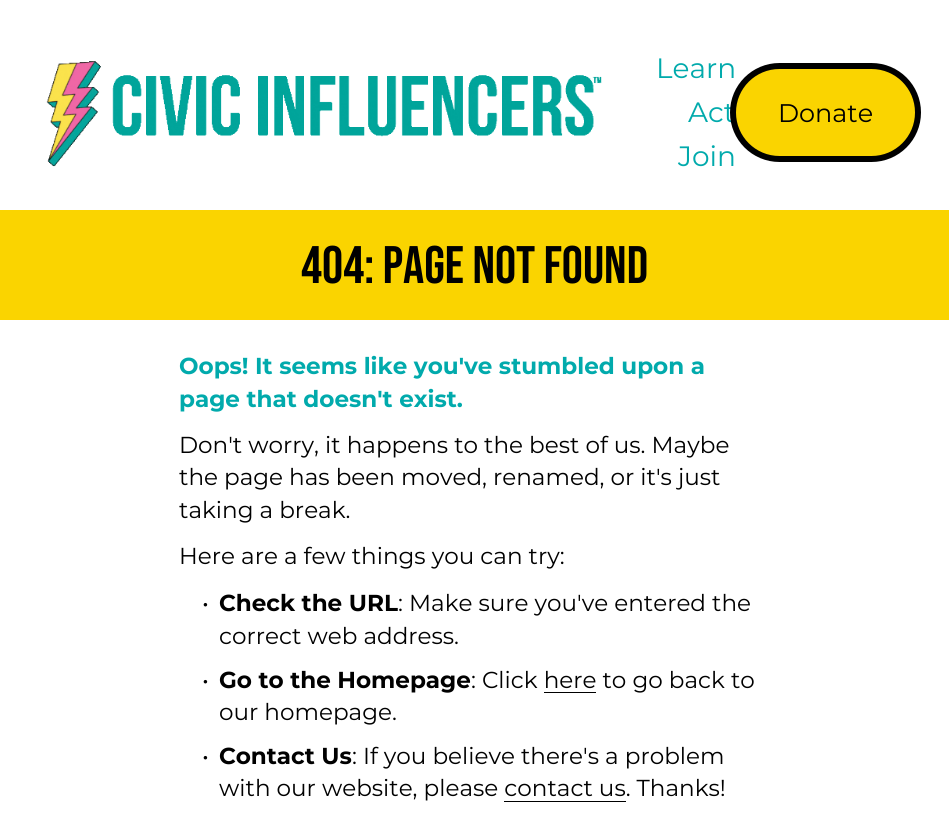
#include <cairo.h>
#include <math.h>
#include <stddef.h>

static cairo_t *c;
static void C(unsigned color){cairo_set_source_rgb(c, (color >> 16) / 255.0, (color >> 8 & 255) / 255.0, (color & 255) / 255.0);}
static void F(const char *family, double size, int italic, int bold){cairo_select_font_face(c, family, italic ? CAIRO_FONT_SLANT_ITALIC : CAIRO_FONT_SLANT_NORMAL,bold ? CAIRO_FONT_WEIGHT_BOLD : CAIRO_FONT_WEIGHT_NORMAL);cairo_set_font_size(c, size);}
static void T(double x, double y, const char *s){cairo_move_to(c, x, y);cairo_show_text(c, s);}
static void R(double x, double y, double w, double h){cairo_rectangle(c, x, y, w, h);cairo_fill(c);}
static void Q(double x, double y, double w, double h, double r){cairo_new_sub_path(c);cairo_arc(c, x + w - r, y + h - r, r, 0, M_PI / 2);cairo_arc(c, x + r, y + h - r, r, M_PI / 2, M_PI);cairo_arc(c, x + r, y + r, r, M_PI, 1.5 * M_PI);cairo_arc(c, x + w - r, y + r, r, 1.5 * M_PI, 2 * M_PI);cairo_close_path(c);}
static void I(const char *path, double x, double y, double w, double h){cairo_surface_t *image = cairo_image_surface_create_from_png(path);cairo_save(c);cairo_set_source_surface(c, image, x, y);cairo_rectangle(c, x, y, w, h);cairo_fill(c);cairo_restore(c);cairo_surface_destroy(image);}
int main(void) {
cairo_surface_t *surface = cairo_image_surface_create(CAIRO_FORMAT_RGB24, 949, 830);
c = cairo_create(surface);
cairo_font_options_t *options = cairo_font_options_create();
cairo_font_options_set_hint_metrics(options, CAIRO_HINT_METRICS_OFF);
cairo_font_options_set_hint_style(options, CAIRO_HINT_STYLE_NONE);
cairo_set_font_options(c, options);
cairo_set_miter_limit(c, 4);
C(0xffffff);
cairo_paint(c);
I("1.png",46,61,556,106);
F("Montserrat",28,0,0);
C(0x01aaac);
T(656,78,"Learn");
T(688,122,"Act");
T(678,166,"Join");
C(0xfad400);
Q(733,66,185,93,46.5);
cairo_fill_preserve(c);
C(0x000000);
cairo_set_line_width(c,6);
cairo_stroke(c);
F("Montserrat",25.5,0,0);
T(778,122,"Donate");
C(0xfad400);
R(0,210,949,110);
F("Bebas Neue",52.75,0,0);
C(0x000000);
T(301,283,"404: Page Not Found");
F("Montserrat",23.1,0,1);
C(0x01aaac);
T(179,374,"Oops! It seems like you've stumbled upon a");
T(179,407,"page that doesn't exist.");
F("Montserrat",23.1,0,0);
C(0x000000);
T(179,453,"Don't worry, it happens to the best of us. Maybe");
T(179,485,"the page has been moved, renamed, or it's just");
T(179,518,"taking a break.");
T(179,564,"Here are a few things you can try:");
T(202,611,"•");
F("Montserrat",23.1,0,1);
T(219,611,"Check the URL");
F("Montserrat",23.1,0,0);
T(398,611,": Make sure you've entered the");
T(219,644,"correct web address.");
T(202,688,"•");
F("Montserrat",23.1,0,1);
T(219,688,"Go to the Homepage");
F("Montserrat",23.1,0,0);
T(471,688,": Click here to go back to");
R(544,692,52,1);
T(219,720,"our homepage.");
T(202,764,"•");
F("Montserrat",23.1,0,1);
T(219,764,"Contact Us");
F("Montserrat",23.1,0,0);
T(352,764,": If you believe there's a problem");
T(219,796,"with our website, please contact us. Thanks!");
R(504,801,122,1);
cairo_surface_write_to_png(surface, "o.png");
cairo_font_options_destroy(options);
cairo_destroy(c);
cairo_surface_destroy(surface);
return 0;
}
